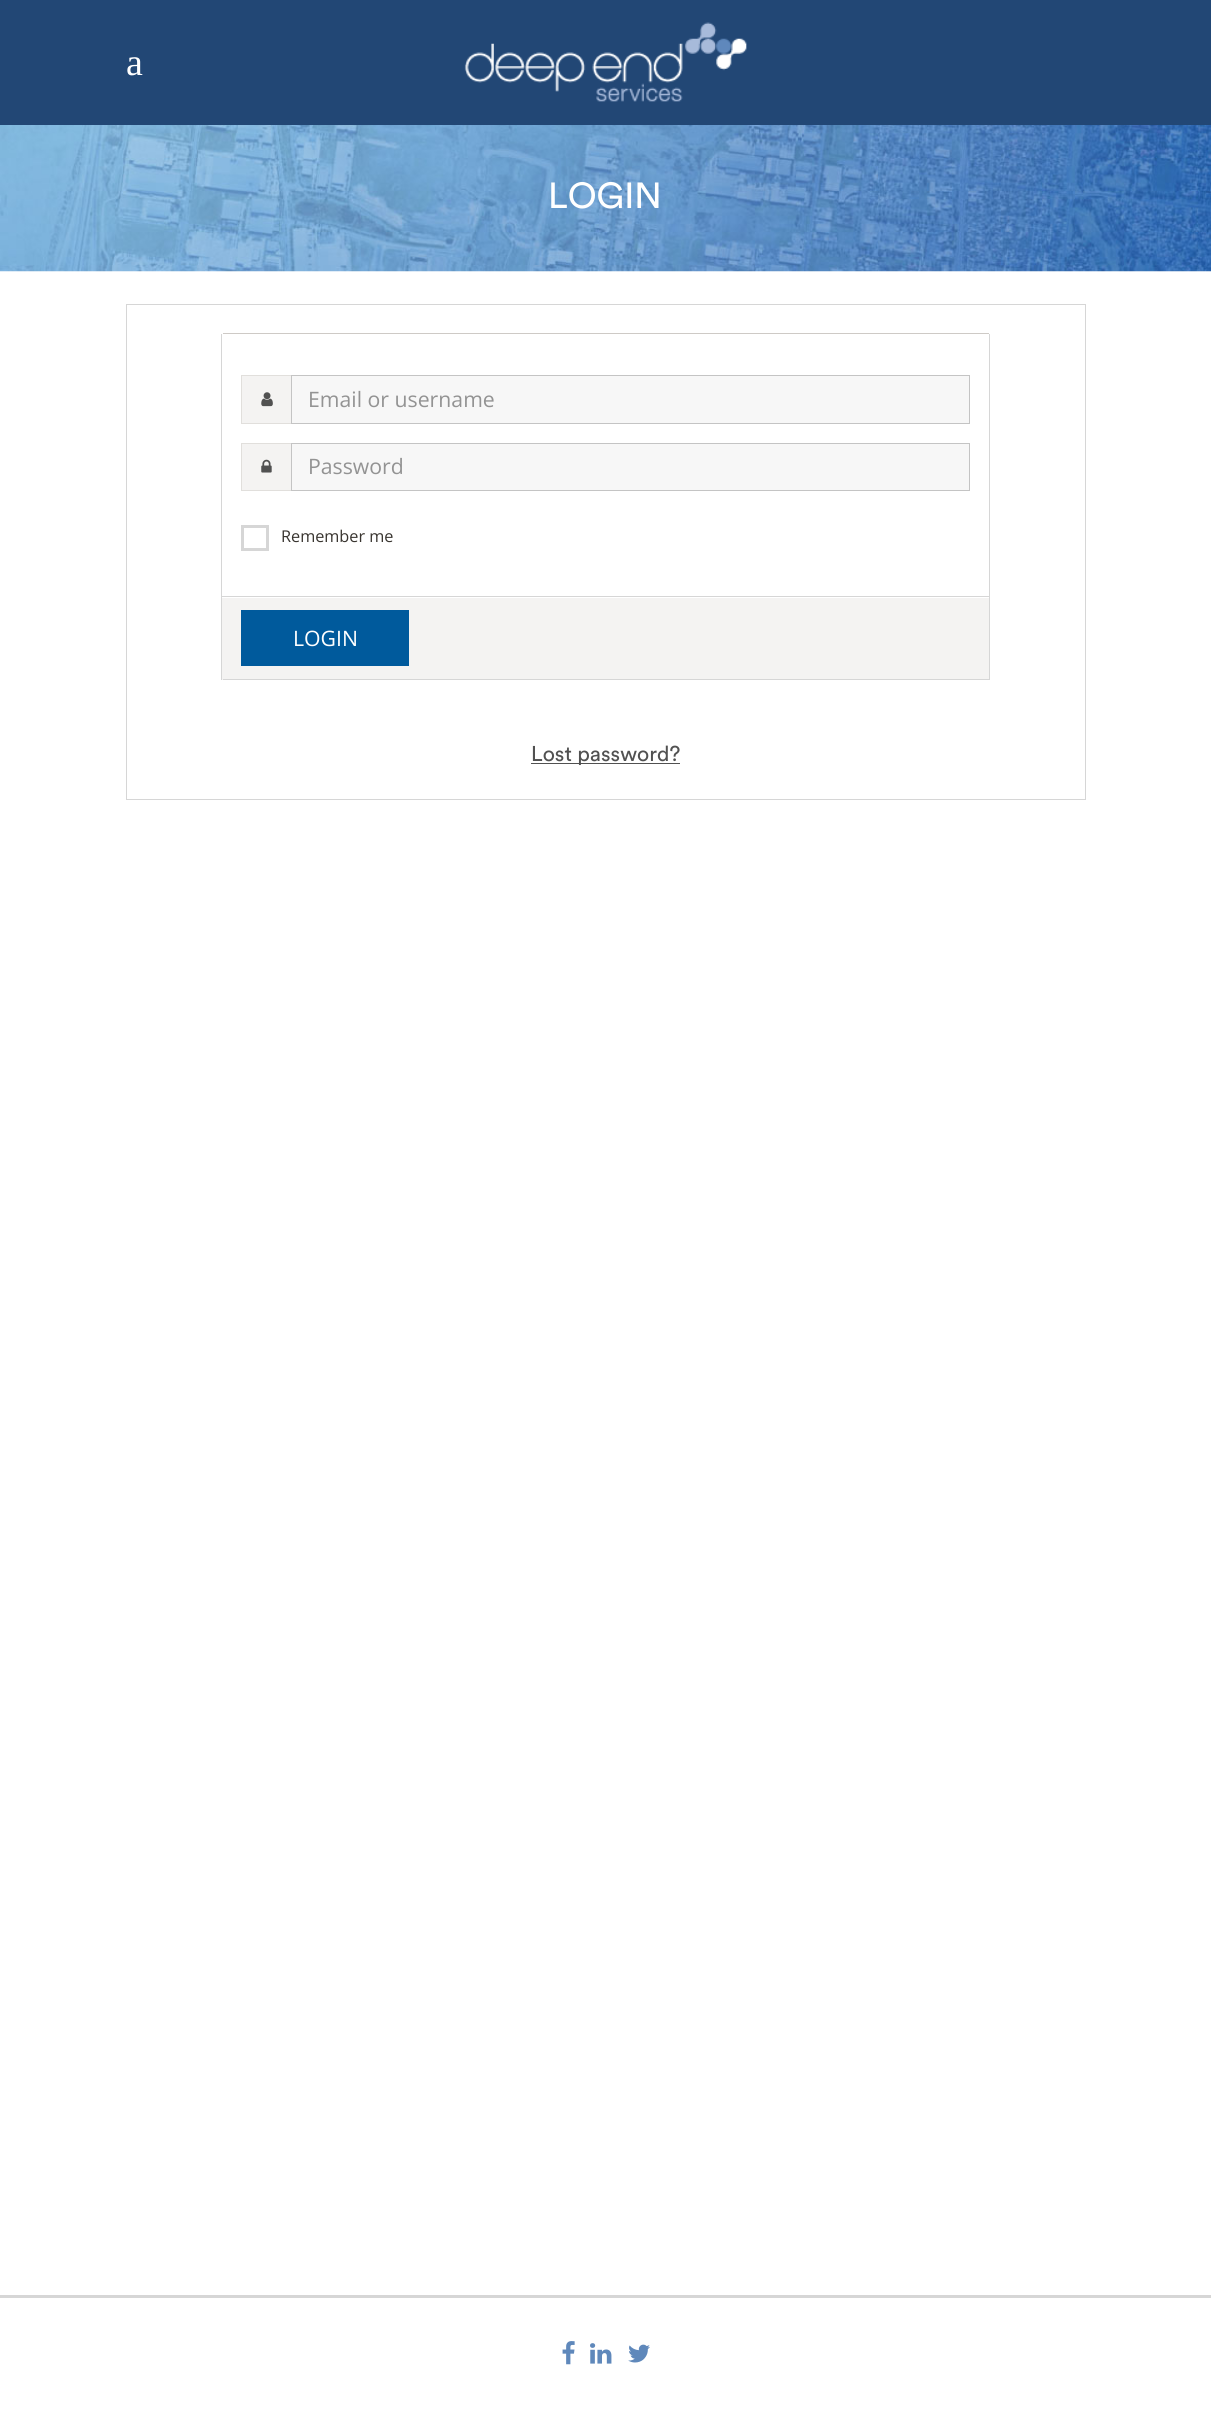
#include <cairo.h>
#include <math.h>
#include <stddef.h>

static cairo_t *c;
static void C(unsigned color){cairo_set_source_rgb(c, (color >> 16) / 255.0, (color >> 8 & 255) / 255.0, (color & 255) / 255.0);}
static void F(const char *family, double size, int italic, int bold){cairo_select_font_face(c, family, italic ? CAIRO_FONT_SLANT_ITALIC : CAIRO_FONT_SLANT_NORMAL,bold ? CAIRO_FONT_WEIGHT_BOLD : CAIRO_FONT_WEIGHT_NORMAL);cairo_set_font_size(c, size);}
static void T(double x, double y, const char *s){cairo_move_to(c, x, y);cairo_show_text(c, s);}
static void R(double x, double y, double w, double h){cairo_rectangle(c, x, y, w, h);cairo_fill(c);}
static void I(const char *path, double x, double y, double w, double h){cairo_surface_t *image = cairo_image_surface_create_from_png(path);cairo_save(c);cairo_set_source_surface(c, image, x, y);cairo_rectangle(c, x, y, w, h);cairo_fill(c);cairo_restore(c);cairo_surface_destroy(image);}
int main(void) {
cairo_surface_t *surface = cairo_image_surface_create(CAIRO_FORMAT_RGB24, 1211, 2413);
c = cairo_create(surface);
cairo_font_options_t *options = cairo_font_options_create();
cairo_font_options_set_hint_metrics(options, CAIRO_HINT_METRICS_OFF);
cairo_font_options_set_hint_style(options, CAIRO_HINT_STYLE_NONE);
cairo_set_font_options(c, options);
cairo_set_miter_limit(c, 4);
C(0xffffff);
cairo_paint(c);
C(0x224775);
R(0,0,1211,125);
F("Liberation Serif",38,0,0);
C(0xffffff);
T(126,75,"a");
I("1.png",464,22,283,80);
I("2.png",0,125,1211,147);
F("Circular",36,0,0);
T(548,208,"LOGIN");
cairo_rectangle(c,126.5,304.5,959,495);
C(0xd6d6d6);
cairo_set_line_width(c,1);
cairo_stroke(c);
C(0xcecac6);
R(223,333,766,1);
C(0xd6d6d6);
R(989,334,1,346);
R(221,596,769,1);
R(221,334,1,264);
C(0xf4f3f2);
R(242,376,49,47);
C(0xe1dfdc);
R(241,375,50,1);
R(241,423,50,1);
R(241,375,1,49);
I("3.png",261,392,12,15);
C(0xf7f7f7);
cairo_rectangle(c,291.5,375.5,678,48);
cairo_fill_preserve(c);
C(0xc4c4c4);
cairo_stroke(c);
F("Open Sans",21.25,0,0);
C(0x939393);
T(308,407,"Email or username");
C(0xf4f3f2);
R(242,444,49,46);
C(0xe1dfdc);
R(241,443,50,1);
R(241,490,50,1);
R(241,443,1,48);
I("4.png",261,459,11,14);
C(0xf7f7f7);
cairo_rectangle(c,291.5,443.5,678,47);
cairo_fill_preserve(c);
C(0xc4c4c4);
cairo_stroke(c);
C(0x939393);
T(308,474,"Password");
cairo_rectangle(c,242.5,526.5,25,23);
C(0xd6d6d6);
cairo_set_line_width(c,3);
cairo_stroke(c);
F("Open Sans",16.25,0,0);
C(0x38342f);
T(281,542,"Remember me");
C(0xf4f3f2);
R(222,598,767,82);
C(0xd6d6d6);
R(223,679,767,1);
R(221,598,1,82);
C(0x005a9c);
R(241,610,168,56);
F("Open Sans",21.25,0,0);
C(0xffffff);
T(293,646,"LOGIN");
C(0x515151);
R(531,763,149,1);
F("Circular",21.25,0,0);
T(531,761,"Lost password?");
C(0xd6d6d6);
R(0,2295,1211,3);
I("5.png",562,2341,13,24);
I("6.png",590,2343,22,21);
I("7.png",628,2344,22,19);
cairo_surface_write_to_png(surface, "o.png");
cairo_font_options_destroy(options);
cairo_destroy(c);
cairo_surface_destroy(surface);
return 0;
}
